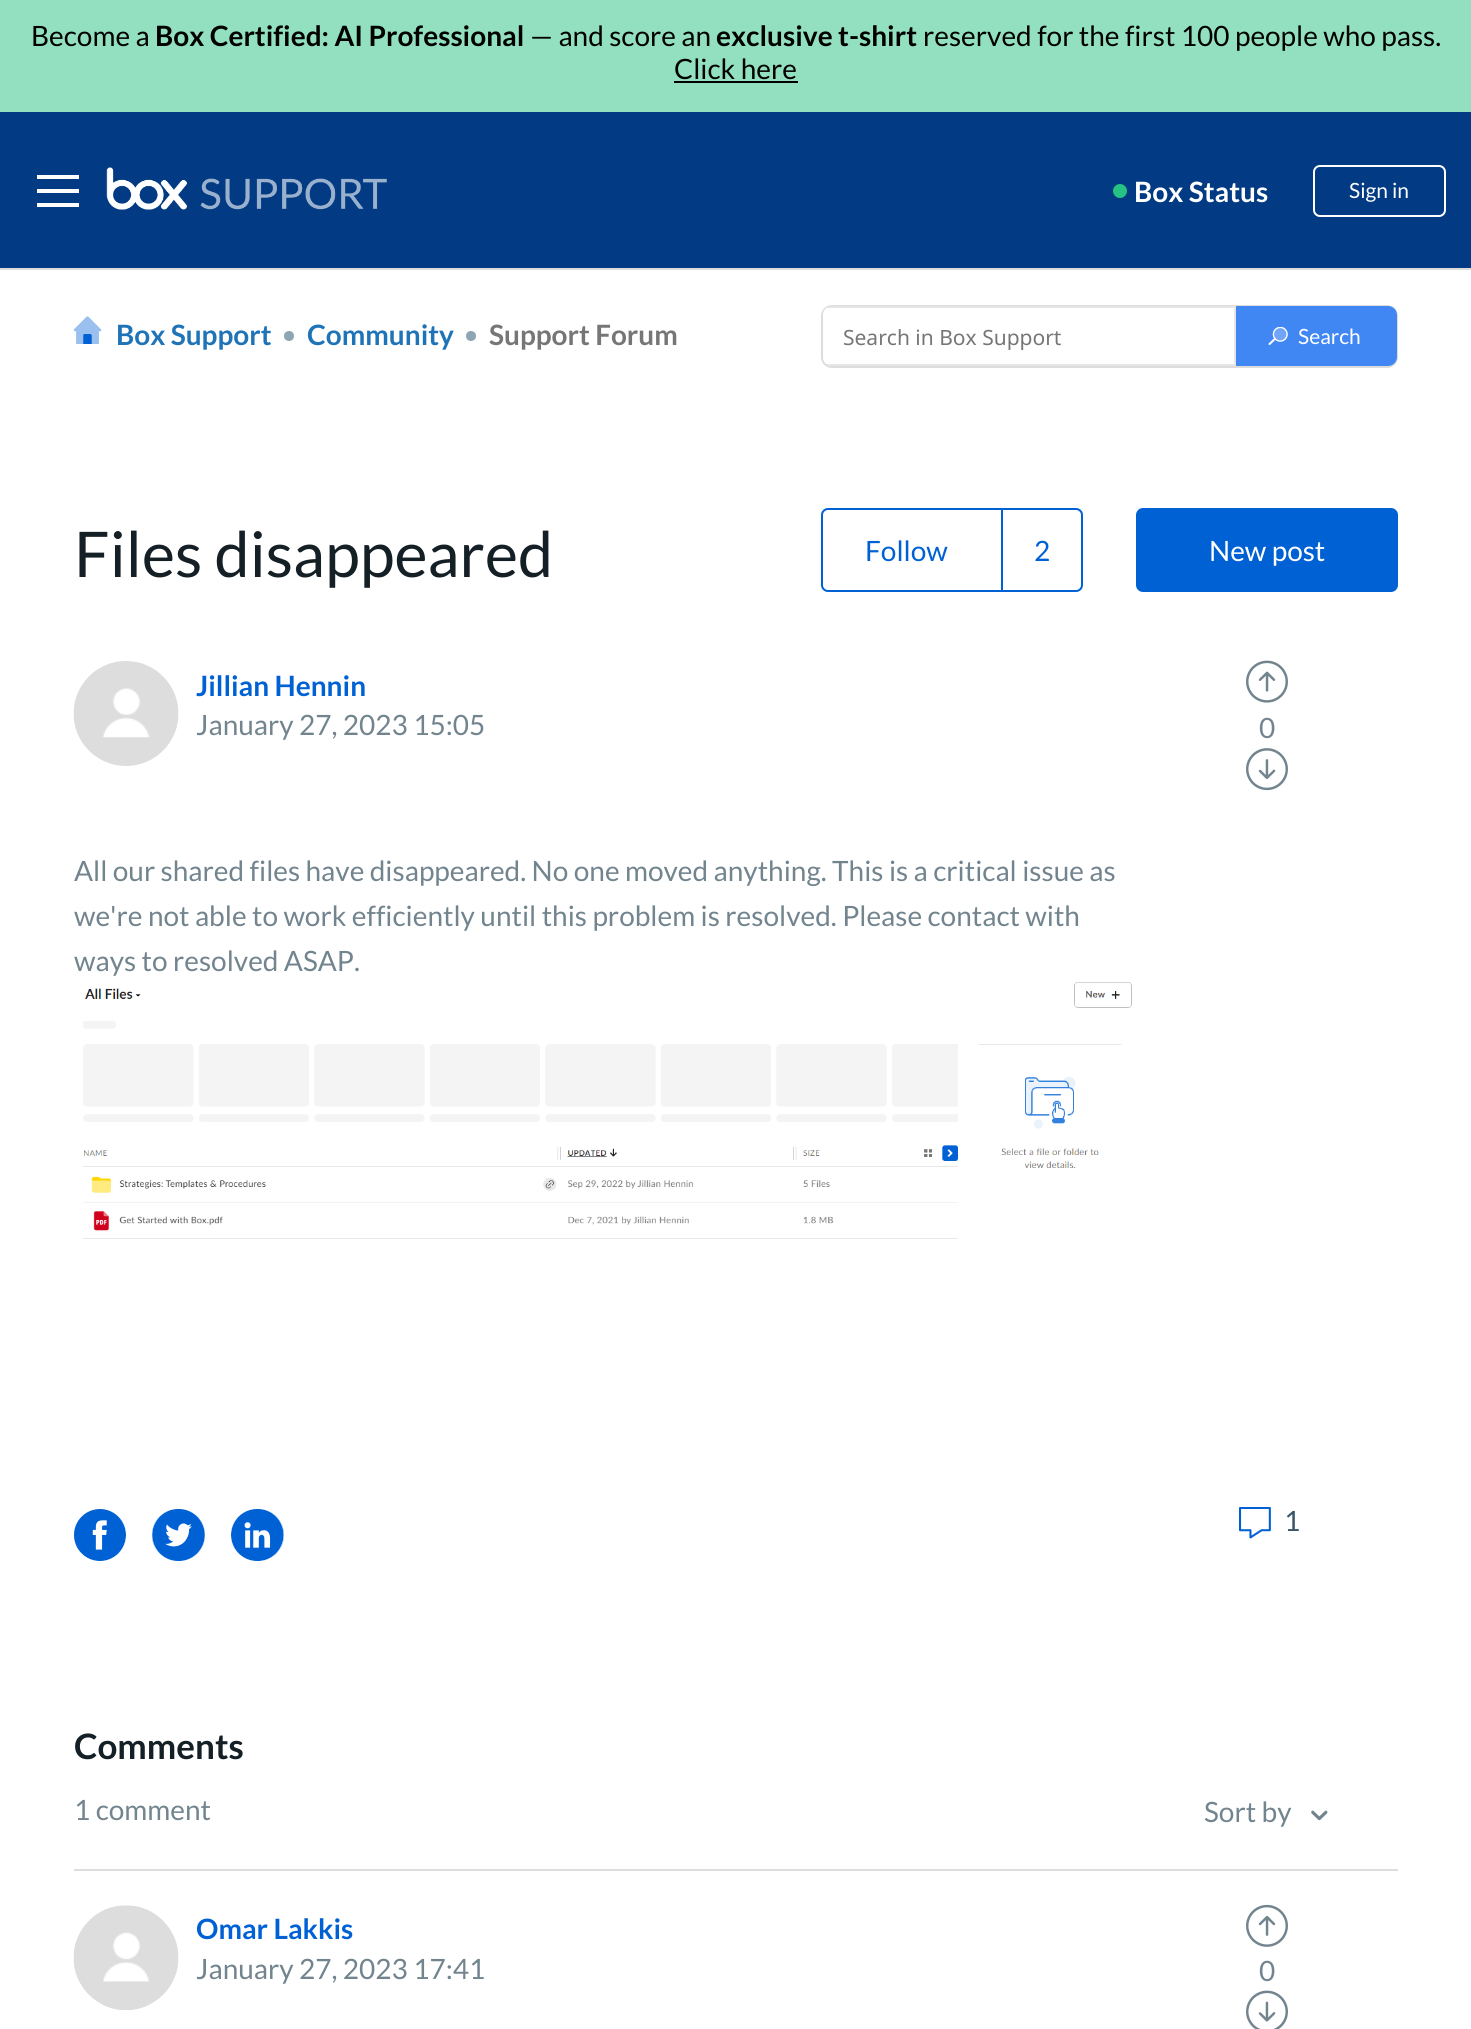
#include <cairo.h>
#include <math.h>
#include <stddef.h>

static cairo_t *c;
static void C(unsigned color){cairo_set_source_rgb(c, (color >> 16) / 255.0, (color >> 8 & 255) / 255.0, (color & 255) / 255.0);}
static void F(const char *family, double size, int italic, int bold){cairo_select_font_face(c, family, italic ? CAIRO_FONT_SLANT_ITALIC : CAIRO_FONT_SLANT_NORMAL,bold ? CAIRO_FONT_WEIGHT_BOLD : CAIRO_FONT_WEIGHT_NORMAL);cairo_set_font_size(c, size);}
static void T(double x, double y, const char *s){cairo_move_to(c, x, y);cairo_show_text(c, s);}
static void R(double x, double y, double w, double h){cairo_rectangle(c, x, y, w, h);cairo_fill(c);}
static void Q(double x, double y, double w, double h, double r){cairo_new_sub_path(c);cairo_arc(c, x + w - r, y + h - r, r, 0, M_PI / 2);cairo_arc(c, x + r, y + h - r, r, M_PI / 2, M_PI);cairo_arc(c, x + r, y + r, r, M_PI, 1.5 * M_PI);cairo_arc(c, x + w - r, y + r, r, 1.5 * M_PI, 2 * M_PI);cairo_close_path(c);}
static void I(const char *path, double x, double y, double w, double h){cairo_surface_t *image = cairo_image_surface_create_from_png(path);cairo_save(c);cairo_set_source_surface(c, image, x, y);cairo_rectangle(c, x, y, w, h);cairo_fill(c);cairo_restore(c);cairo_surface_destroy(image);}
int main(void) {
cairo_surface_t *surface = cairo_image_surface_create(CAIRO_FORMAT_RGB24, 1471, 2029);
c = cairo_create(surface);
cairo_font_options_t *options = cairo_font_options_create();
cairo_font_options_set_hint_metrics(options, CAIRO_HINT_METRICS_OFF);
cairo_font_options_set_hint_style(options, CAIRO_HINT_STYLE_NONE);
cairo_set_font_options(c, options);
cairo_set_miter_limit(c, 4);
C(0xffffff);
cairo_paint(c);
C(0x92e0c0);
R(0,0,1471,112);
F("Lato",28,0,0);
C(0x000000);
T(31,46,"Become a");
F("Lato",28,0,1);
T(155,46,"Box Certified: AI Professional");
F("Lato",28,0,0);
T(530,46,"— and score an");
F("Lato",28,0,1);
T(716,46,"exclusive t-shirt");
F("Lato",28,0,0);
T(923,46,"reserved for the first 100 people who pass.");
T(674,79,"Click here");
R(674,81,124,2);
C(0x023b83);
R(0,112,1471,156);
C(0xffffff);
R(37,175,42,4);
R(37,189,42,4);
R(37,203,42,4);
I("1.png",106,167,281,43);
C(0x26c281);
cairo_arc(c,1120,191,7,0,2 * M_PI);
cairo_fill(c);
F("Lato",28,0,1);
C(0xffffff);
T(1134,202,"Box Status");
Q(1314,166,131,50,6);
cairo_stroke(c);
F("Lato",21,0,0);
T(1349,198,"Sign in");
C(0xdddddd);
R(0,268,1471,2);
I("2.png",74,316,28,28);
F("Lato",28,0,1);
C(0x1f73b7);
T(116,345,"Box Support");
C(0x8ea6b2);
cairo_new_path(c);
cairo_arc(c,289,336,5,0,2 * M_PI);
cairo_fill(c);
C(0x1f73b7);
T(307,345,"Community");
C(0x8ea6b2);
cairo_new_path(c);
cairo_arc(c,471,336,5,0,2 * M_PI);
cairo_fill(c);
C(0x767676);
T(489,345,"Support Forum");
Q(822,306,575,61,10);
C(0xdcdcdc);
cairo_stroke(c);
C(0xffffff);
cairo_new_path(c);
cairo_move_to(c,832,306);
cairo_line_to(c,1236,306);
cairo_line_to(c,1236,366);
cairo_line_to(c,832,366);
cairo_curve_to(c,827,366,823,362,823,357);
cairo_line_to(c,823,315);
cairo_curve_to(c,823,310,827,306,832,306);
cairo_close_path(c);
cairo_fill(c);
cairo_set_source_rgba(c,0,0,0,0.1);
cairo_new_path(c);
cairo_move_to(c,832,306);
cairo_curve_to(c,830,306,828,307,826,308);
cairo_line_to(c,1234,308);
cairo_line_to(c,1234,364);
cairo_line_to(c,826,364);
cairo_curve_to(c,828,365,830,366,832,366);
cairo_line_to(c,1236,366);
cairo_line_to(c,1236,306);
cairo_close_path(c);
cairo_fill(c);
F("Noto Sans",21,0,0);
C(0x767676);
T(843,345,"Search in Box Support");
C(0x4187f4);
cairo_new_path(c);
cairo_move_to(c,1236,306);
cairo_line_to(c,1388,306);
cairo_curve_to(c,1393,306,1397,310,1397,315);
cairo_line_to(c,1397,357);
cairo_curve_to(c,1397,362,1393,366,1388,366);
cairo_line_to(c,1236,366);
cairo_close_path(c);
cairo_fill(c);
I("3.png",1268,327,20,18);
F("Lato",21,0,0);
C(0xffffff);
T(1298,344,"Search");
F("Lato",63,0,0);
C(0x151f26);
T(74,577,"Files disappeared");
Q(822,509,260,82,6);
C(0x0061d5);
cairo_stroke(c);
F("Lato",28,0,0);
T(865,561,"Follow");
R(1001,509,2,81);
T(1034,561,"2");
Q(1136,508,262,84,7);
cairo_fill(c);
C(0xffffff);
T(1209,561,"New post");
I("4.png",73,661,106,105);
F("Lato",28,0,1);
C(0x0061d5);
T(196,696,"Jillian Hennin");
F("Lato",28,0,0);
C(0x72848e);
T(196,735,"January 27, 2023 15:05");
T(74,881,"All our shared files have disappeared. No one moved anything. This is a critical issue as");
T(74,926,"we're not able to work efficiently until this problem is resolved. Please contact with");
T(74,971,"ways to resolved ASAP.");
I("5.png",83,982,1049,257);
I("6.png",1246,660,42,43);
T(1259,738,"0");
I("7.png",1246,748,42,43);
C(0x0061d5);
cairo_arc(c,100,1535,26,0,2 * M_PI);
cairo_fill(c);
I("8.png",76,1509,50,52);
Q(152,1509,53,52,26);
cairo_fill(c);
I("9.png",152,1509,53,52);
Q(231,1509,53,52,26);
cairo_fill(c);
I("10.png",231,1509,53,52);
I("11.png",1239,1507,32,32);
C(0x395568);
T(1284,1531,"1");
C(0xdddddd);
R(74,1869,1324,2);
F("Lato",35,0,1);
C(0x151f26);
T(74,1759,"Comments");
F("Lato",28,0,0);
C(0x72848e);
T(74,1820,"1 comment");
T(1204,1822,"Sort by");
I("12.png",1311,1810,17,11);
I("13.png",73,1905,106,105);
F("Lato",28,0,1);
C(0x0061d5);
T(196,1939,"Omar Lakkis");
F("Lato",28,0,0);
C(0x72848e);
T(196,1979,"January 27, 2023 17:41");
I("14.png",1246,1904,42,43);
T(1259,1981,"0");
I("15.png",1246,1990,42,39);
cairo_surface_write_to_png(surface, "o.png");
cairo_font_options_destroy(options);
cairo_destroy(c);
cairo_surface_destroy(surface);
return 0;
}
